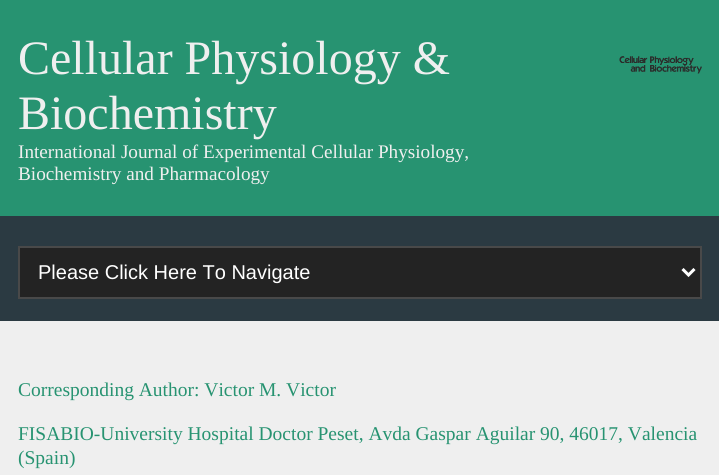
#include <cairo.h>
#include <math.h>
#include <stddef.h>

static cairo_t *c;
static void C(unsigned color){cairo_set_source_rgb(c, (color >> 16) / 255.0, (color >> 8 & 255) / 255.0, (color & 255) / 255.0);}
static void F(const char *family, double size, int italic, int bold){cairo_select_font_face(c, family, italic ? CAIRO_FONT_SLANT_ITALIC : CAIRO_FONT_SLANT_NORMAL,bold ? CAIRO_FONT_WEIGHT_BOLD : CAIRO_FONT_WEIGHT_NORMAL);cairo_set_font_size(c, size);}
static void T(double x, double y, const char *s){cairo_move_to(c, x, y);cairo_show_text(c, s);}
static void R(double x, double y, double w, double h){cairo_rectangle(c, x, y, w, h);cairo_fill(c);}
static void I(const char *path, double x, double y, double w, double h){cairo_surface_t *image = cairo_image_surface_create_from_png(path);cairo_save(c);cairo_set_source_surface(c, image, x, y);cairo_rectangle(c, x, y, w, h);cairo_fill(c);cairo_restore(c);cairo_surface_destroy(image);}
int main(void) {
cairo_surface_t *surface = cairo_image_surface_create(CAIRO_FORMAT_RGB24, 719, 475);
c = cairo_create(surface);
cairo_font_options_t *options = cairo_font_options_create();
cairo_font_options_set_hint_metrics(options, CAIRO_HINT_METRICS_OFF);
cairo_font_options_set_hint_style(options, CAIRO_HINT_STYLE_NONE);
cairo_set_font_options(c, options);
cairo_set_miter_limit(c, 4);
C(0x279371);
cairo_paint(c);
F("Liberation Serif",48,0,0);
C(0xefefef);
T(18,74,"Cellular Physiology &");
T(18,129,"Biochemistry");
F("Liberation Serif",19.2,0,0);
T(18,158,"International Journal of Experimental Cellular Physiology,");
T(18,180,"Biochemistry and Pharmacology");
I("1.png",619,56,83,18);
C(0x2b3a42);
R(0,216,719,105);
C(0x232323);
cairo_rectangle(c,19,247,682,51);
cairo_fill_preserve(c);
C(0x494949);
cairo_stroke(c);
cairo_new_path(c);
cairo_move_to(c,682.5,269);
cairo_line_to(c,688.5,275);
cairo_line_to(c,694.5,269);
C(0xffffff);
cairo_set_line_width(c,3);
cairo_stroke(c);
F("Liberation Sans",20,0,0);
T(38,279,"Please Click Here To Navigate");
C(0xefefef);
R(0,321,719,154);
F("Liberation Serif",19.5,0,0);
C(0x279371);
T(18,396,"Corresponding Author: Victor M. Victor");
T(18,440,"FISABIO-University Hospital Doctor Peset, Avda Gaspar Aguilar 90, 46017, Valencia");
T(18,464,"(Spain)");
cairo_surface_write_to_png(surface, "o.png");
cairo_font_options_destroy(options);
cairo_destroy(c);
cairo_surface_destroy(surface);
return 0;
}
